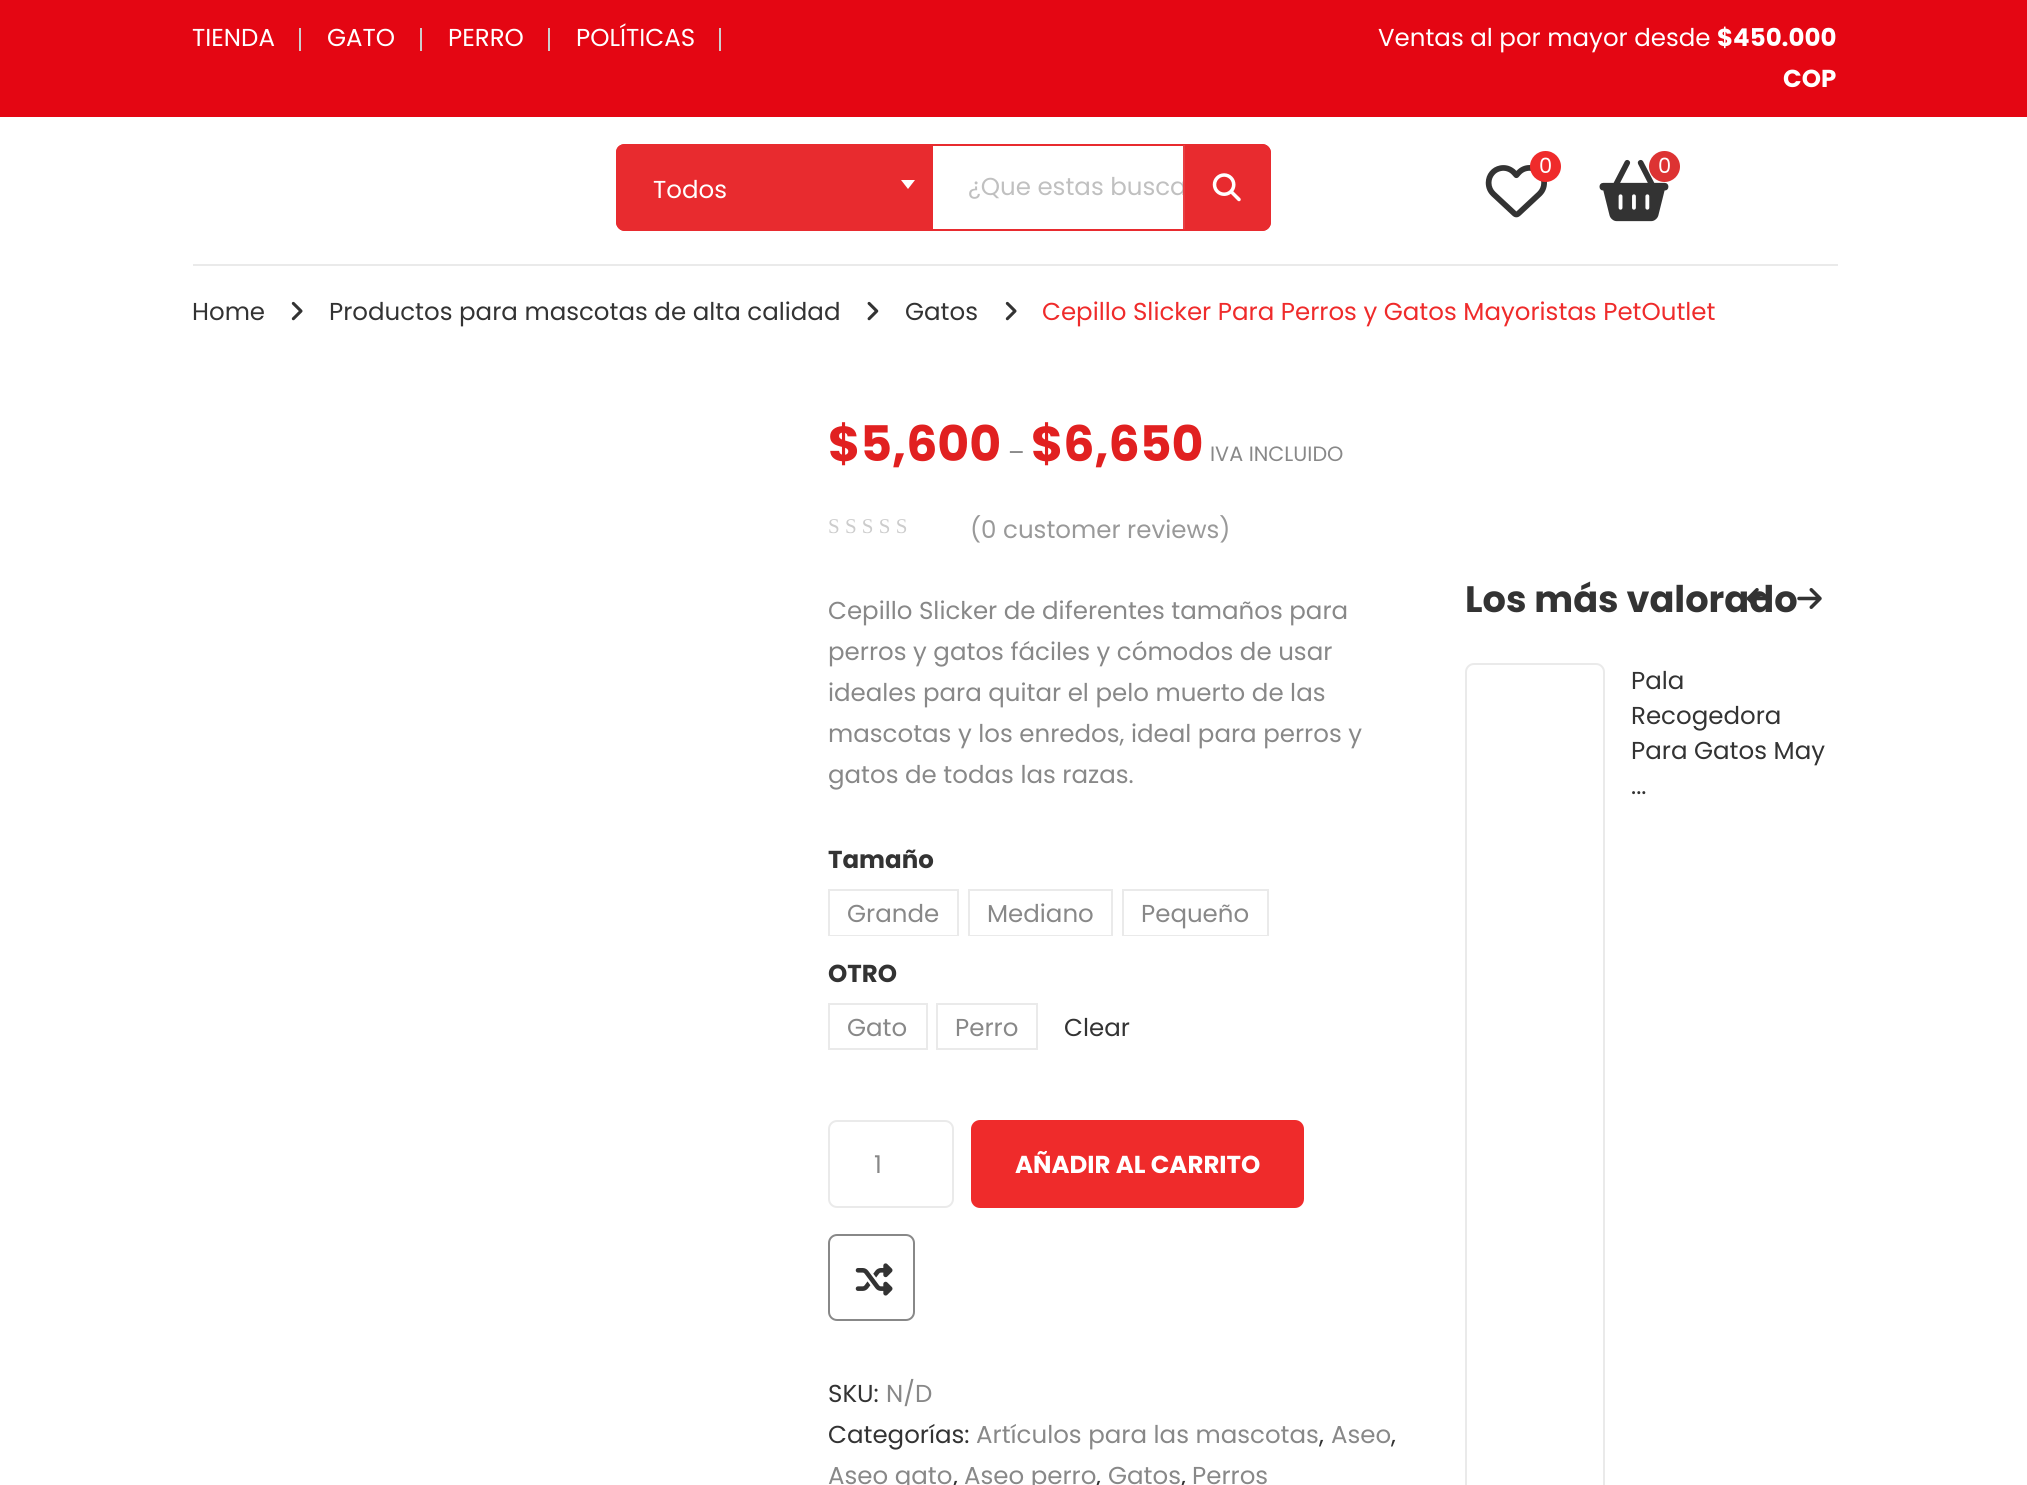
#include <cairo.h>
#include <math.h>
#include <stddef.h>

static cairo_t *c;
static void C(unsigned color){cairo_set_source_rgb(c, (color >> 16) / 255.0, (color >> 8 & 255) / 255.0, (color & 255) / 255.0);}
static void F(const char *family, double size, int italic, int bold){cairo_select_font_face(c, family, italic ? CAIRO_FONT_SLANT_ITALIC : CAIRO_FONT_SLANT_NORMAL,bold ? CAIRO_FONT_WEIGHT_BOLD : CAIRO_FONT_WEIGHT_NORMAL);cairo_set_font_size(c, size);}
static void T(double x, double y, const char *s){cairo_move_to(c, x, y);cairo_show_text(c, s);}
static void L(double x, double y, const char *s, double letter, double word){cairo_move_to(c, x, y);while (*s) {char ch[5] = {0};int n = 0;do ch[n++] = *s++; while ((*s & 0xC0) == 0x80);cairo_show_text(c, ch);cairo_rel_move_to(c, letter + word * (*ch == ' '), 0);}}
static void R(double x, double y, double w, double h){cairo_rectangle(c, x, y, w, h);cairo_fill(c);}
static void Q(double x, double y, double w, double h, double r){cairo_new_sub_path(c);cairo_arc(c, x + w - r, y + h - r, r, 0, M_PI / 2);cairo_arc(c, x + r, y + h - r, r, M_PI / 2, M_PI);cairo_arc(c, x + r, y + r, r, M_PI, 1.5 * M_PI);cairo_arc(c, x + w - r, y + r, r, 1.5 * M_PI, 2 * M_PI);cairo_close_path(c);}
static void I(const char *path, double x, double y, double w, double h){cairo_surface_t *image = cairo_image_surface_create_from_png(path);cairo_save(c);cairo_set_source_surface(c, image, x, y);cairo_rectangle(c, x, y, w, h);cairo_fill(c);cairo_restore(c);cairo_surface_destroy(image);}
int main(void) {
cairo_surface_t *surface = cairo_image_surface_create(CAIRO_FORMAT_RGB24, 2027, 1485);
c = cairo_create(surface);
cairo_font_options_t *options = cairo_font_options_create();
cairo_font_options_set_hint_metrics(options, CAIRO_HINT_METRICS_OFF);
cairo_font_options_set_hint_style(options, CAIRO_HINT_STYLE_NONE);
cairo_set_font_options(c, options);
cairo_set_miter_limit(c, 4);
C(0xffffff);
cairo_paint(c);
C(0xe40613);
R(0,0,2027,117);
F("Poppins",24.5,0,0);
C(0xffffff);
T(192,46,"TIENDA");
C(0xcccccc);
R(299,28,2,23);
C(0xffffff);
T(327,46,"GATO");
C(0xcccccc);
R(420,28,2,23);
C(0xffffff);
T(448,46,"PERRO");
C(0xcccccc);
R(548,28,2,23);
C(0xffffff);
T(576,46,"POLÍTICAS");
C(0xcccccc);
R(719,28,2,23);
C(0xffffff);
T(1378,46,"Ventas al por mayor desde");
F("Poppins",24.5,0,1);
T(1717,46,"$450.000");
T(1783,87,"COP");
I("1.png",1485,165,62,53);
C(0xef2b2b);
cairo_arc(c,1545.5,166.5,15.5,0,2 * M_PI);
cairo_fill(c);
F("Poppins",21,0,0);
C(0xffffff);
T(1539,173,"0");
I("2.png",1599,159,70,63);
C(0xdd3333);
cairo_arc(c,1664.5,166.5,15.5,0,2 * M_PI);
cairo_fill(c);
C(0xffffff);
T(1658,173,"0");
C(0xe82b2f);
cairo_new_path(c);
cairo_move_to(c,625,144);
cairo_line_to(c,931,144);
cairo_line_to(c,931,231);
cairo_line_to(c,625,231);
cairo_curve_to(c,620,231,616,227,616,222);
cairo_line_to(c,616,153);
cairo_curve_to(c,616,148,620,144,625,144);
cairo_close_path(c);
cairo_fill(c);
cairo_set_fill_rule(c,CAIRO_FILL_RULE_EVEN_ODD);
cairo_new_path(c);
cairo_move_to(c,625,144);
cairo_line_to(c,931,144);
cairo_line_to(c,931,231);
cairo_line_to(c,625,231);
cairo_curve_to(c,620,231,616,227,616,222);
cairo_line_to(c,616,152);
cairo_curve_to(c,616,147,620,144,625,144);
cairo_close_path(c);
cairo_move_to(c,625,145);
cairo_line_to(c,931,145);
cairo_line_to(c,931,229);
cairo_line_to(c,625,229);
cairo_curve_to(c,621,229,618,226,618,222);
cairo_line_to(c,618,152);
cairo_curve_to(c,618,148,621,145,625,145);
cairo_close_path(c);
cairo_fill(c);
F("Poppins",24.5,0,0);
C(0xffffff);
T(653,198,"Todos");
cairo_set_fill_rule(c,CAIRO_FILL_RULE_WINDING);
cairo_new_path(c);
cairo_move_to(c,901,180);
cairo_line_to(c,915,180);
cairo_line_to(c,908,189);
cairo_close_path(c);
cairo_fill(c);
cairo_new_path(c);
cairo_move_to(c,932,145);
cairo_line_to(c,1262,145);
cairo_curve_to(c,1266.5,145,1270,148.5,1270,153);
cairo_line_to(c,1270,222);
cairo_curve_to(c,1270,226.5,1266.5,230,1262,230);
cairo_line_to(c,932,230);
cairo_close_path(c);
C(0xe82b2f);
cairo_stroke(c);
C(0xc0c0c0);
T(968,195,"¿Que estas busca");
C(0xe82b2f);
cairo_new_path(c);
cairo_move_to(c,1183,144);
cairo_line_to(c,1262,144);
cairo_curve_to(c,1267,144,1271,148,1271,153);
cairo_line_to(c,1271,222);
cairo_curve_to(c,1271,227,1267,231,1262,231);
cairo_line_to(c,1183,231);
cairo_close_path(c);
cairo_fill(c);
C(0xe83e42);
R(1183,145,2,84);
I("3.png",1212,173,29,29);
C(0xeaeaea);
R(193,264,1645,2);
C(0x333333);
T(192,320,"Home");
I("4.png",291,301,12,20);
T(329,320,"Productos para mascotas de alta calidad");
I("5.png",867,301,12,20);
T(905,320,"Gatos");
I("4.png",1005,301,12,20);
C(0xef2b2b);
T(1042,320,"Cepillo Slicker Para Perros y Gatos Mayoristas PetOutlet");
F("Poppins",49,0,1);
C(0xe12020);
T(828,461,"$5,600");
F("Poppins",24.5,0,0);
C(0x888888);
T(1008,461,"–");
F("Poppins",49,0,1);
C(0xe12020);
T(1031,461,"$6,650");
F("Poppins",20.75,0,0);
C(0x888888);
T(1210,461,"IVA INCLUIDO");
F("Liberation Serif",21,0,0);
C(0xcccccc);
L(828,533,"SSSSS",5.25,0);
F("Poppins",24.5,0,0);
C(0x999999);
T(970,538,"(0 customer reviews)");
C(0x888888);
T(828,619,"Cepillo Slicker de diferentes tamaños para");
T(828,660,"perros y gatos fáciles y cómodos de usar");
T(828,701,"ideales para quitar el pelo muerto de las");
T(828,742,"mascotas y los enredos, ideal para perros y");
T(828,783,"gatos de todas las razas.");
F("Poppins",24.5,0,1);
C(0x333333);
T(828,868,"Tamaño");
cairo_rectangle(c,829,890,129,45);
C(0xeaeaea);
cairo_stroke(c);
C(0xffffff);
R(830,934,127,1);
F("Poppins",24.5,0,0);
C(0x888888);
T(847,922,"Grande");
cairo_rectangle(c,969,890,143,45);
C(0xeaeaea);
cairo_stroke(c);
C(0xffffff);
R(970,934,141,1);
C(0x888888);
T(987,922,"Mediano");
cairo_rectangle(c,1123,890,145,45);
C(0xeaeaea);
cairo_stroke(c);
C(0xffffff);
R(1124,934,143,1);
C(0x888888);
T(1141,922,"Pequeño");
F("Poppins",24.5,0,1);
C(0x333333);
T(828,982,"OTRO");
cairo_rectangle(c,829,1004,98,45);
C(0xeaeaea);
cairo_stroke(c);
F("Poppins",24.5,0,0);
C(0x888888);
T(847,1036,"Gato");
cairo_rectangle(c,937,1004,100,45);
C(0xeaeaea);
cairo_stroke(c);
C(0x888888);
T(955,1036,"Perro");
C(0x333333);
T(1064,1036,"Clear");
Q(829,1121,124,86,8);
C(0xeaeaea);
cairo_stroke(c);
C(0x888888);
T(874,1173,"1");
C(0xef2b2b);
Q(971,1120,333,88,9);
cairo_fill(c);
F("Poppins",24.5,0,1);
C(0xffffff);
T(1015,1173,"AÑADIR AL CARRITO");
Q(829,1235,85,85,8);
C(0x888888);
cairo_stroke(c);
I("6.png",855,1263,38,33);
F("Poppins",24.5,0,0);
C(0x333333);
T(828,1402,"SKU:");
C(0x888888);
T(886,1402,"N/D");
C(0x333333);
T(828,1443,"Categorías:");
C(0x888888);
T(976,1443,"Artículos para las mascotas");
C(0x333333);
T(1319,1443,",");
C(0x888888);
T(1331,1443,"Aseo");
C(0x333333);
T(1391,1443,",");
C(0x888888);
T(828,1484,"Aseo gato");
C(0x333333);
T(953,1484,",");
C(0x888888);
T(964,1484,"Aseo perro");
C(0x333333);
T(1096,1484,",");
C(0x888888);
T(1108,1484,"Gatos");
C(0x333333);
T(1181,1484,",");
C(0x888888);
T(1192,1484,"Perros");
F("Poppins",36.75,0,1);
C(0x333333);
T(1465,612,"Los más valorado");
I("7.png",1746,588,20,19);
I("8.png",1797,588,25,21);
Q(1466,664,138,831,8);
C(0xeaeaea);
cairo_stroke(c);
F("Poppins",24.5,0,0);
C(0x333333);
T(1631,689,"Pala");
T(1631,724,"Recogedora");
T(1631,759,"Para Gatos May");
T(1631,794,"...");
cairo_surface_write_to_png(surface, "o.png");
cairo_font_options_destroy(options);
cairo_destroy(c);
cairo_surface_destroy(surface);
return 0;
}
